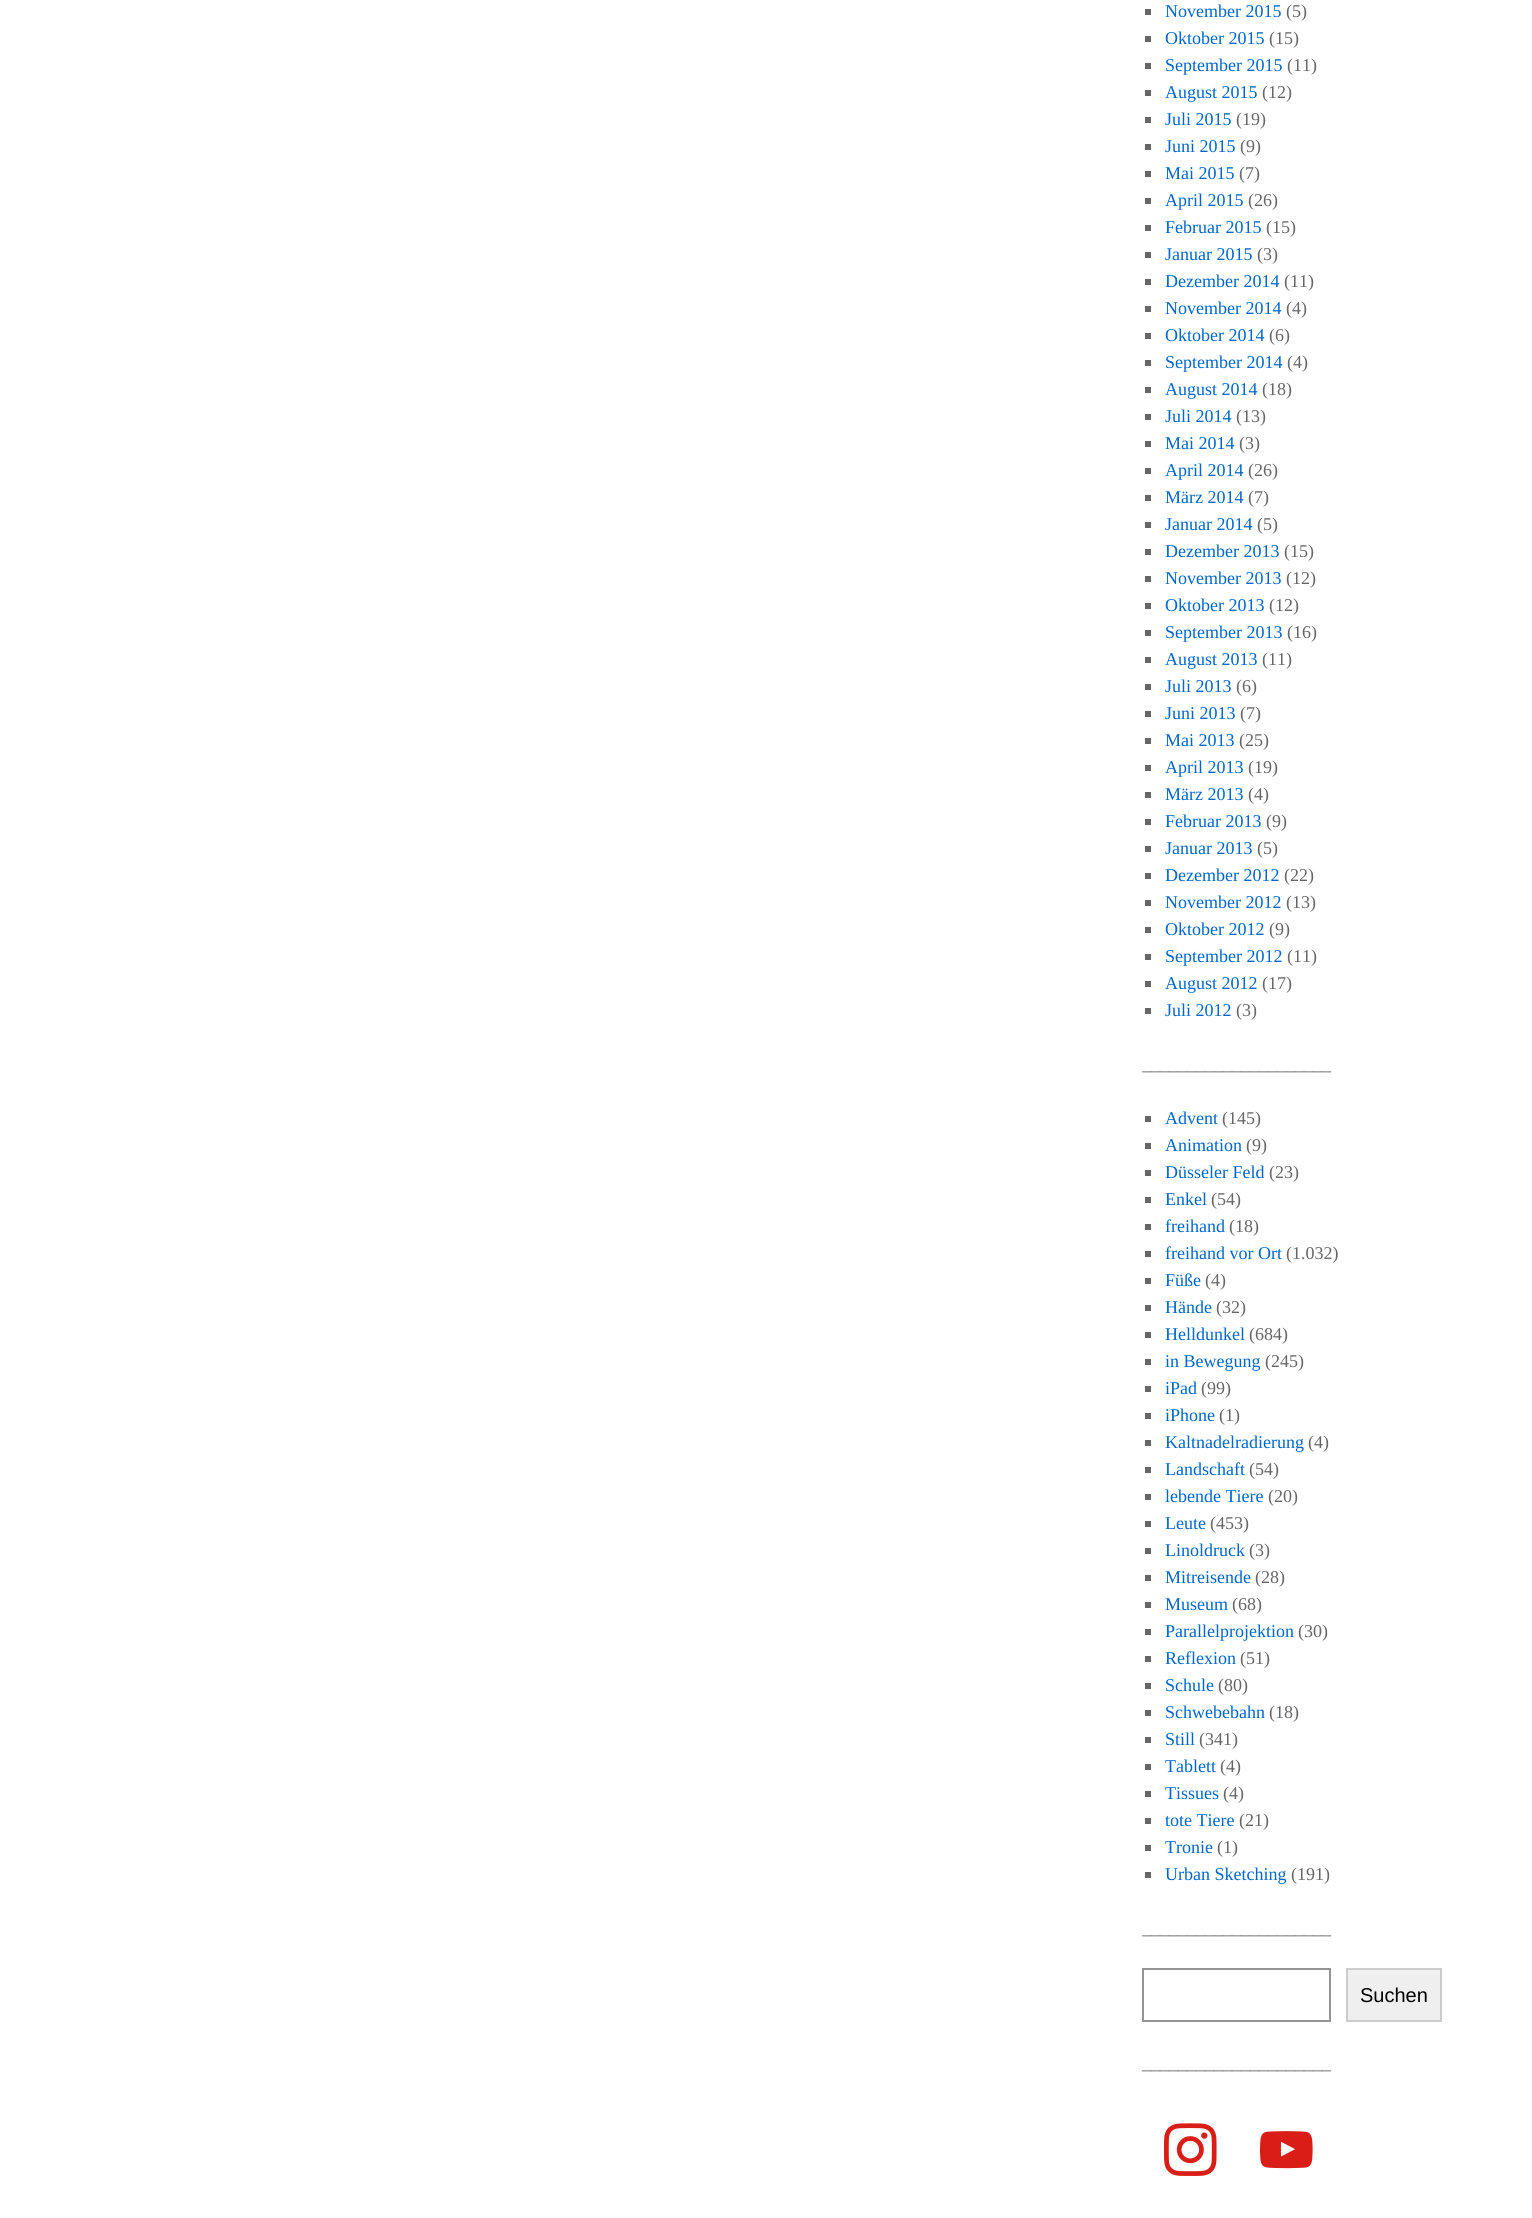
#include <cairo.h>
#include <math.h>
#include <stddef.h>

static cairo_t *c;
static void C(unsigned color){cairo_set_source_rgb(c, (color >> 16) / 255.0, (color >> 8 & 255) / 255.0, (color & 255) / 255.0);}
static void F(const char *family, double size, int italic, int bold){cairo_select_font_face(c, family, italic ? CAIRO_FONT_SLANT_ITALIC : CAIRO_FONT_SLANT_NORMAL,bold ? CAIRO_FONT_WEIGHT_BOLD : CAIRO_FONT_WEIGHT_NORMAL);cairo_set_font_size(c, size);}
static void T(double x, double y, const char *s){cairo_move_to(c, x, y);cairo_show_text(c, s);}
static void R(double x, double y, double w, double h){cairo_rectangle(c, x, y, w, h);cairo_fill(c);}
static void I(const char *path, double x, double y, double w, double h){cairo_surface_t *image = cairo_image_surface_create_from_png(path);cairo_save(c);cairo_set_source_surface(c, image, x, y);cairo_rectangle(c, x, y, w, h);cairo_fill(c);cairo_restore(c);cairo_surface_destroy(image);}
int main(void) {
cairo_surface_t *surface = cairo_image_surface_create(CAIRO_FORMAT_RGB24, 1532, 2218);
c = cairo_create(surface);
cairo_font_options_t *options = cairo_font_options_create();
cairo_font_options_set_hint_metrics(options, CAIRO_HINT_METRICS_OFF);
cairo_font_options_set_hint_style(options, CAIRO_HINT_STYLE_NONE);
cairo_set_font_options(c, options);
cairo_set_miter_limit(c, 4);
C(0xffffff);
cairo_paint(c);
C(0x666666);
R(1145,9,6,6);
F("Liberation Serif",18,0,0);
C(0x0066cc);
T(1165,17,"November 2015");
C(0x666666);
T(1286,17,"(5)");
R(1145,36,6,6);
C(0x0066cc);
T(1165,44,"Oktober 2015");
C(0x666666);
T(1269,44,"(15)");
R(1145,63,6,6);
C(0x0066cc);
T(1165,71,"September 2015");
C(0x666666);
T(1287,71,"(11)");
R(1145,90,6,6);
C(0x0066cc);
T(1165,98,"August 2015");
C(0x666666);
T(1262,98,"(12)");
R(1145,117,6,6);
C(0x0066cc);
T(1165,125,"Juli 2015");
C(0x666666);
T(1236,125,"(19)");
R(1145,144,6,6);
C(0x0066cc);
T(1165,152,"Juni 2015");
C(0x666666);
T(1240,152,"(9)");
R(1145,171,6,6);
C(0x0066cc);
T(1165,179,"Mai 2015");
C(0x666666);
T(1239,179,"(7)");
R(1145,198,6,6);
C(0x0066cc);
T(1165,206,"April 2015");
C(0x666666);
T(1248,206,"(26)");
R(1145,225,6,6);
C(0x0066cc);
T(1165,233,"Februar 2015");
C(0x666666);
T(1266,233,"(15)");
R(1145,252,6,6);
C(0x0066cc);
T(1165,260,"Januar 2015");
C(0x666666);
T(1257,260,"(3)");
R(1145,279,6,6);
C(0x0066cc);
T(1165,287,"Dezember 2014");
C(0x666666);
T(1284,287,"(11)");
R(1145,306,6,6);
C(0x0066cc);
T(1165,314,"November 2014");
C(0x666666);
T(1286,314,"(4)");
R(1145,333,6,6);
C(0x0066cc);
T(1165,341,"Oktober 2014");
C(0x666666);
T(1269,341,"(6)");
R(1145,360,6,6);
C(0x0066cc);
T(1165,368,"September 2014");
C(0x666666);
T(1287,368,"(4)");
R(1145,387,6,6);
C(0x0066cc);
T(1165,395,"August 2014");
C(0x666666);
T(1262,395,"(18)");
R(1145,414,6,6);
C(0x0066cc);
T(1165,422,"Juli 2014");
C(0x666666);
T(1236,422,"(13)");
R(1145,441,6,6);
C(0x0066cc);
T(1165,449,"Mai 2014");
C(0x666666);
T(1239,449,"(3)");
R(1145,468,6,6);
C(0x0066cc);
T(1165,476,"April 2014");
C(0x666666);
T(1248,476,"(26)");
R(1145,495,6,6);
C(0x0066cc);
T(1165,503,"März 2014");
C(0x666666);
T(1248,503,"(7)");
R(1145,522,6,6);
C(0x0066cc);
T(1165,530,"Januar 2014");
C(0x666666);
T(1257,530,"(5)");
R(1145,549,6,6);
C(0x0066cc);
T(1165,557,"Dezember 2013");
C(0x666666);
T(1284,557,"(15)");
R(1145,576,6,6);
C(0x0066cc);
T(1165,584,"November 2013");
C(0x666666);
T(1286,584,"(12)");
R(1145,603,6,6);
C(0x0066cc);
T(1165,611,"Oktober 2013");
C(0x666666);
T(1269,611,"(12)");
R(1145,630,6,6);
C(0x0066cc);
T(1165,638,"September 2013");
C(0x666666);
T(1287,638,"(16)");
R(1145,657,6,6);
C(0x0066cc);
T(1165,665,"August 2013");
C(0x666666);
T(1262,665,"(11)");
R(1145,684,6,6);
C(0x0066cc);
T(1165,692,"Juli 2013");
C(0x666666);
T(1236,692,"(6)");
R(1145,711,6,6);
C(0x0066cc);
T(1165,719,"Juni 2013");
C(0x666666);
T(1240,719,"(7)");
R(1145,738,6,6);
C(0x0066cc);
T(1165,746,"Mai 2013");
C(0x666666);
T(1239,746,"(25)");
R(1145,765,6,6);
C(0x0066cc);
T(1165,773,"April 2013");
C(0x666666);
T(1248,773,"(19)");
R(1145,792,6,6);
C(0x0066cc);
T(1165,800,"März 2013");
C(0x666666);
T(1248,800,"(4)");
R(1145,819,6,6);
C(0x0066cc);
T(1165,827,"Februar 2013");
C(0x666666);
T(1266,827,"(9)");
R(1145,846,6,6);
C(0x0066cc);
T(1165,854,"Januar 2013");
C(0x666666);
T(1257,854,"(5)");
R(1145,873,6,6);
C(0x0066cc);
T(1165,881,"Dezember 2012");
C(0x666666);
T(1284,881,"(22)");
R(1145,900,6,6);
C(0x0066cc);
T(1165,908,"November 2012");
C(0x666666);
T(1286,908,"(13)");
R(1145,927,6,6);
C(0x0066cc);
T(1165,935,"Oktober 2012");
C(0x666666);
T(1269,935,"(9)");
R(1145,954,6,6);
C(0x0066cc);
T(1165,962,"September 2012");
C(0x666666);
T(1287,962,"(11)");
R(1145,981,6,6);
C(0x0066cc);
T(1165,989,"August 2012");
C(0x666666);
T(1262,989,"(17)");
R(1145,1008,6,6);
C(0x0066cc);
T(1165,1016,"Juli 2012");
C(0x666666);
T(1236,1016,"(3)");
T(1142,1070,"_____________________");
R(1145,1116,6,6);
C(0x0066cc);
T(1165,1124,"Advent");
C(0x666666);
T(1222,1124,"(145)");
R(1145,1143,6,6);
C(0x0066cc);
T(1165,1151,"Animation");
C(0x666666);
T(1246,1151,"(9)");
R(1145,1170,6,6);
C(0x0066cc);
T(1165,1178,"Düsseler Feld");
C(0x666666);
T(1269,1178,"(23)");
R(1145,1197,6,6);
C(0x0066cc);
T(1165,1205,"Enkel");
C(0x666666);
T(1211,1205,"(54)");
R(1145,1224,6,6);
C(0x0066cc);
T(1165,1232,"freihand");
C(0x666666);
T(1229,1232,"(18)");
R(1145,1251,6,6);
C(0x0066cc);
T(1165,1259,"freihand vor Ort");
C(0x666666);
T(1286,1259,"(1.032)");
R(1145,1278,6,6);
C(0x0066cc);
T(1165,1286,"Füße");
C(0x666666);
T(1205,1286,"(4)");
R(1145,1305,6,6);
C(0x0066cc);
T(1165,1313,"Hände");
C(0x666666);
T(1216,1313,"(32)");
R(1145,1332,6,6);
C(0x0066cc);
T(1165,1340,"Helldunkel");
C(0x666666);
T(1249,1340,"(684)");
R(1145,1359,6,6);
C(0x0066cc);
T(1165,1367,"in Bewegung");
C(0x666666);
T(1265,1367,"(245)");
R(1145,1386,6,6);
C(0x0066cc);
T(1165,1394,"iPad");
C(0x666666);
T(1201,1394,"(99)");
R(1145,1413,6,6);
C(0x0066cc);
T(1165,1421,"iPhone");
C(0x666666);
T(1219,1421,"(1)");
R(1145,1440,6,6);
C(0x0066cc);
T(1165,1448,"Kaltnadelradierung");
C(0x666666);
T(1308,1448,"(4)");
R(1145,1467,6,6);
C(0x0066cc);
T(1165,1475,"Landschaft");
C(0x666666);
T(1249,1475,"(54)");
R(1145,1494,6,6);
C(0x0066cc);
T(1165,1502,"lebende Tiere");
C(0x666666);
T(1268,1502,"(20)");
R(1145,1521,6,6);
C(0x0066cc);
T(1165,1529,"Leute");
C(0x666666);
T(1210,1529,"(453)");
R(1145,1548,6,6);
C(0x0066cc);
T(1165,1556,"Linoldruck");
C(0x666666);
T(1249,1556,"(3)");
R(1145,1575,6,6);
C(0x0066cc);
T(1165,1583,"Mitreisende");
C(0x666666);
T(1255,1583,"(28)");
R(1145,1602,6,6);
C(0x0066cc);
T(1165,1610,"Museum");
C(0x666666);
T(1232,1610,"(68)");
R(1145,1629,6,6);
C(0x0066cc);
T(1165,1637,"Parallelprojektion");
C(0x666666);
T(1298,1637,"(30)");
R(1145,1656,6,6);
C(0x0066cc);
T(1165,1664,"Reflexion");
C(0x666666);
T(1240,1664,"(51)");
R(1145,1683,6,6);
C(0x0066cc);
T(1165,1691,"Schule");
C(0x666666);
T(1218,1691,"(80)");
R(1145,1710,6,6);
C(0x0066cc);
T(1165,1718,"Schwebebahn");
C(0x666666);
T(1269,1718,"(18)");
R(1145,1737,6,6);
C(0x0066cc);
T(1165,1745,"Still");
C(0x666666);
T(1199,1745,"(341)");
R(1145,1764,6,6);
C(0x0066cc);
T(1165,1772,"Tablett");
C(0x666666);
T(1220,1772,"(4)");
R(1145,1791,6,6);
C(0x0066cc);
T(1165,1799,"Tissues");
C(0x666666);
T(1223,1799,"(4)");
R(1145,1818,6,6);
C(0x0066cc);
T(1165,1826,"tote Tiere");
C(0x666666);
T(1239,1826,"(21)");
R(1145,1845,6,6);
C(0x0066cc);
T(1165,1853,"Tronie");
C(0x666666);
T(1217,1853,"(1)");
R(1145,1872,6,6);
C(0x0066cc);
T(1165,1880,"Urban Sketching");
C(0x666666);
T(1291,1880,"(191)");
T(1142,1934,"_____________________");
cairo_rectangle(c,1143,1969,187,52);
C(0x949494);
cairo_stroke(c);
C(0xefefef);
cairo_rectangle(c,1347,1969,94,52);
cairo_fill_preserve(c);
C(0xcccccc);
cairo_stroke(c);
F("Liberation Sans",20,0,0);
C(0x000000);
T(1360,2002,"Suchen");
F("Liberation Serif",18,0,0);
C(0x666666);
T(1142,2069,"_____________________");
I("1.png",1164,2123,53,53);
I("2.png",1260,2131,53,38);
cairo_surface_write_to_png(surface, "o.png");
cairo_font_options_destroy(options);
cairo_destroy(c);
cairo_surface_destroy(surface);
return 0;
}
